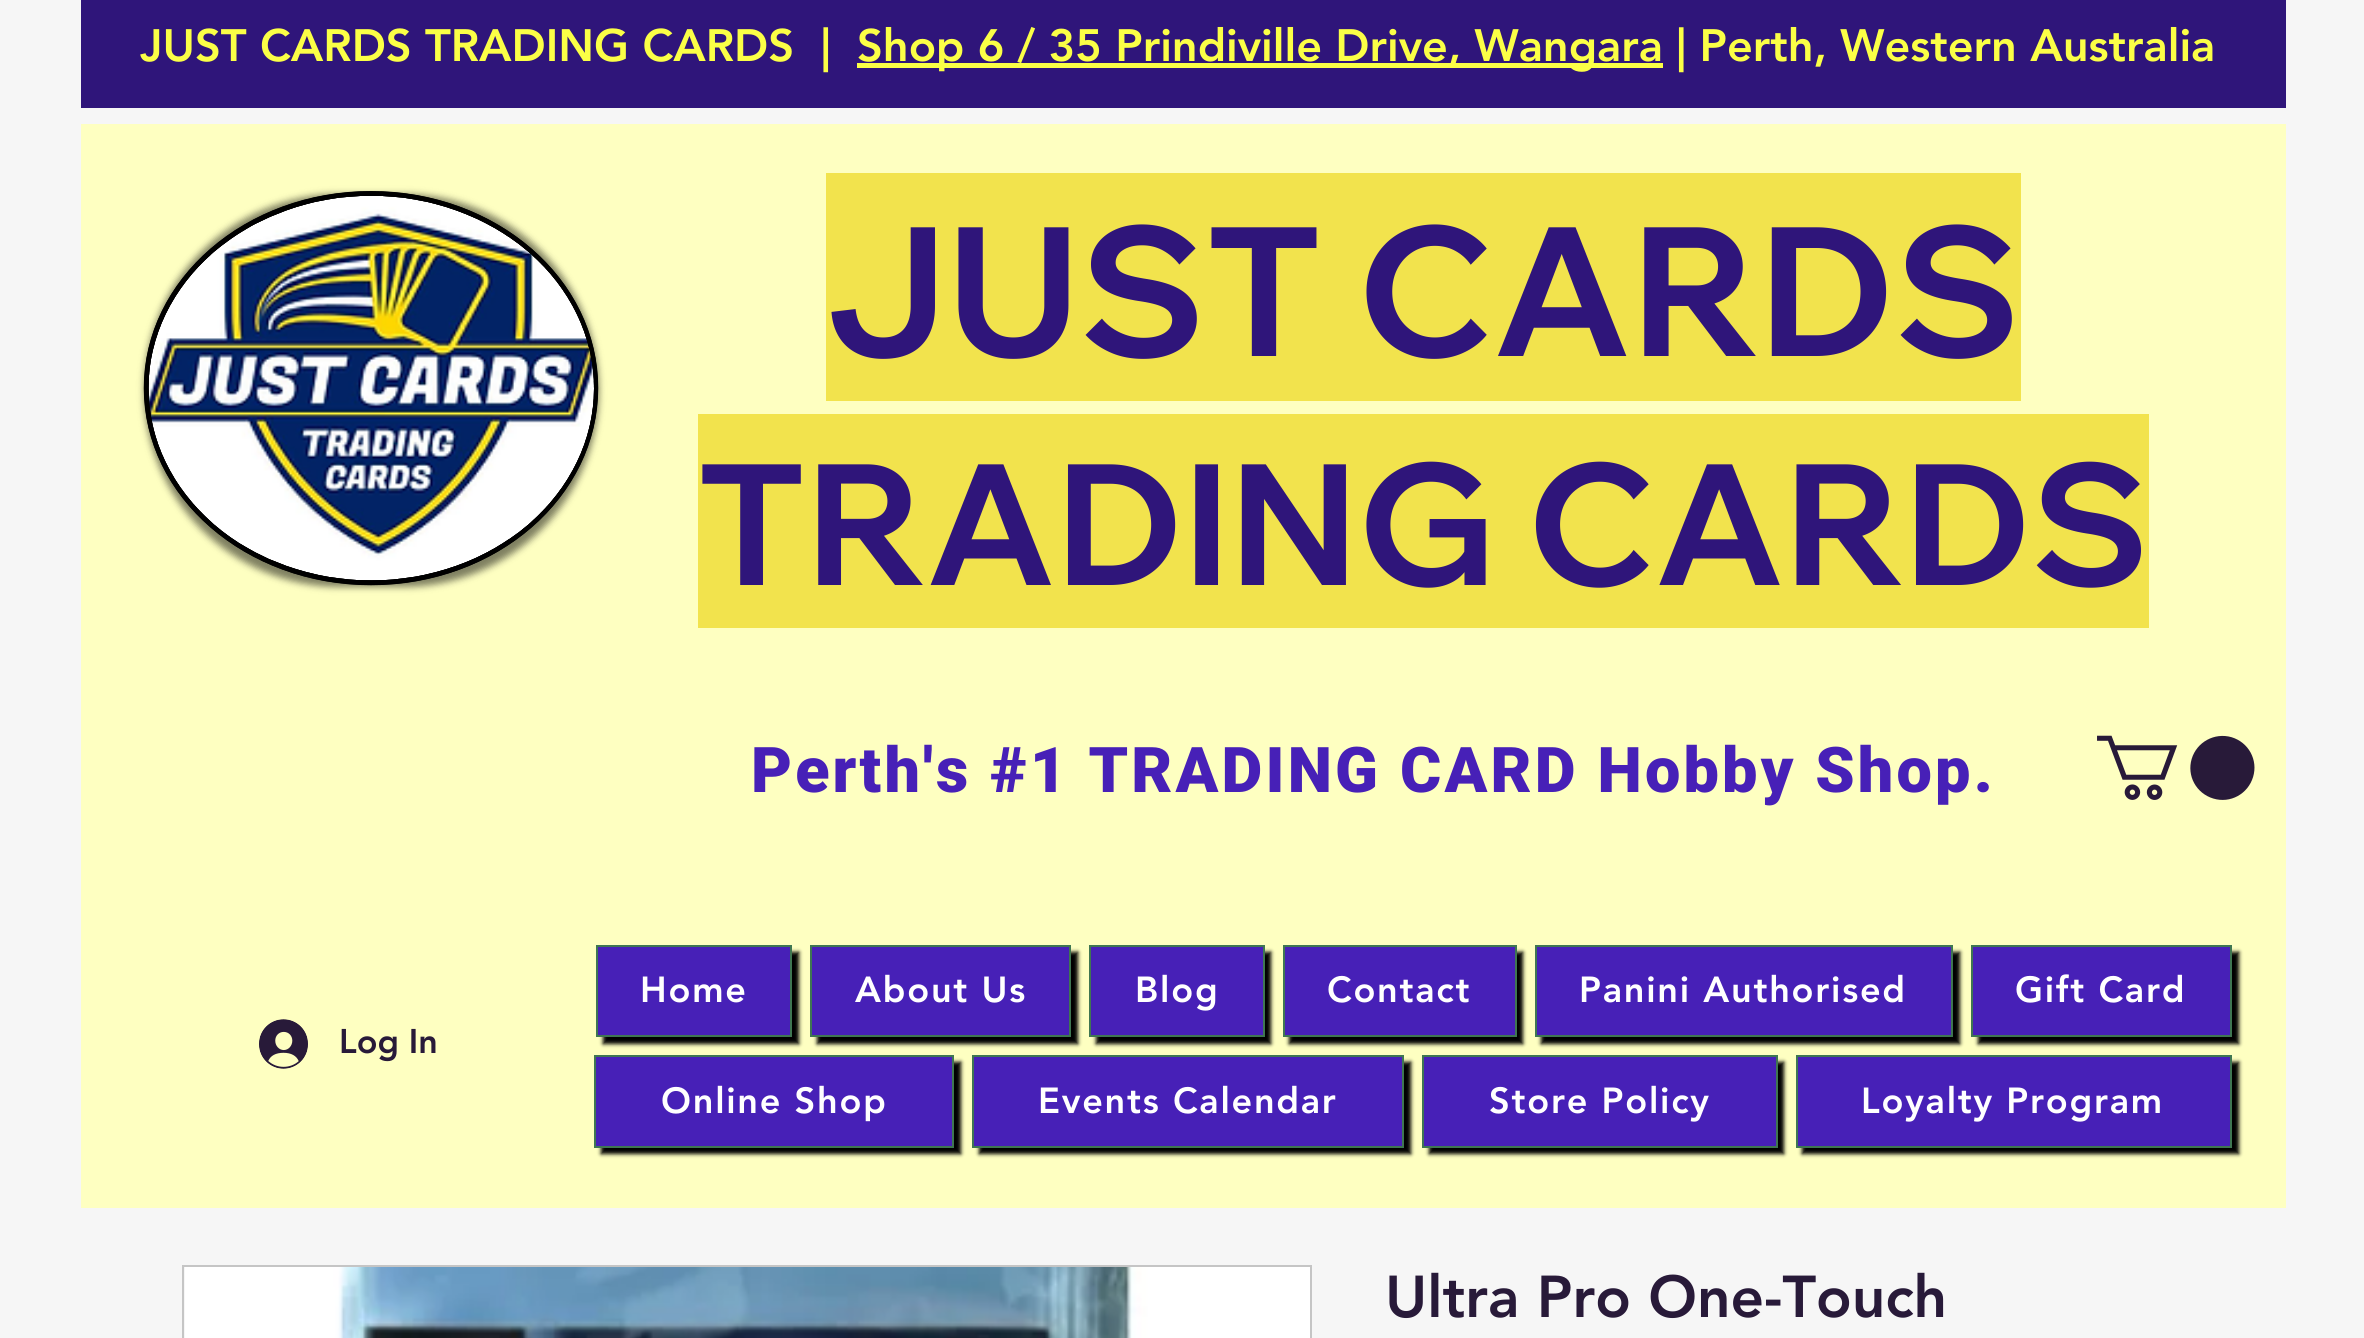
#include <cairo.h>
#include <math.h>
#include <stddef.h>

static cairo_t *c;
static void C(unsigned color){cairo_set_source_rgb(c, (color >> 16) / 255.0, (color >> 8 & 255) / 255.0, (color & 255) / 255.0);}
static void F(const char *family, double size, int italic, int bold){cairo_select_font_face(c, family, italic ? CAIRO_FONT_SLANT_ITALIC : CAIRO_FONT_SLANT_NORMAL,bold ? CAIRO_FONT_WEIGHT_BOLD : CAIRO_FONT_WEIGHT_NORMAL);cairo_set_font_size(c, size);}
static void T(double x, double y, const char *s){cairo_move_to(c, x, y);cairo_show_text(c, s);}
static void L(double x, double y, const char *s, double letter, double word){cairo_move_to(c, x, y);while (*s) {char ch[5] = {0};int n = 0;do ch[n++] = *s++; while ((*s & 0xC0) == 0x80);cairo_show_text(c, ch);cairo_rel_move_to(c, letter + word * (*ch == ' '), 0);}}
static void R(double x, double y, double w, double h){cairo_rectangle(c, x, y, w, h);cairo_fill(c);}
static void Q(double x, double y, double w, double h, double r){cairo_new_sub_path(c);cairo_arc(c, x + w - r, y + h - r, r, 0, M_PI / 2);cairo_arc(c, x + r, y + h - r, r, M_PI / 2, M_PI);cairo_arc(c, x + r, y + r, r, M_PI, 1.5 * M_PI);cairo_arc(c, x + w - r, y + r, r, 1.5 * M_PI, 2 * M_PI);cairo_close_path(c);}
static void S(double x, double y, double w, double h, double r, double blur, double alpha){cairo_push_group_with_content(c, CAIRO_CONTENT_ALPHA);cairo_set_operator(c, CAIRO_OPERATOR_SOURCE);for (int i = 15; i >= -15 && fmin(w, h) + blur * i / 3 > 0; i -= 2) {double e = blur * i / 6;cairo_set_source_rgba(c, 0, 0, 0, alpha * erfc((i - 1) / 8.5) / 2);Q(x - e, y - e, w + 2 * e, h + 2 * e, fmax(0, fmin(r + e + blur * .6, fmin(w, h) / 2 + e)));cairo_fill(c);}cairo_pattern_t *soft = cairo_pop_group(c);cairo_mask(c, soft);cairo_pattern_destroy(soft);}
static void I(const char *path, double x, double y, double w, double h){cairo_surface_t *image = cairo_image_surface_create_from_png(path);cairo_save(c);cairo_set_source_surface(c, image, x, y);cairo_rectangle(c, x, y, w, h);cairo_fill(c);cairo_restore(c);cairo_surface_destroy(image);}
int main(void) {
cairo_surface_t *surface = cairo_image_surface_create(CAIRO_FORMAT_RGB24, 2364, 1338);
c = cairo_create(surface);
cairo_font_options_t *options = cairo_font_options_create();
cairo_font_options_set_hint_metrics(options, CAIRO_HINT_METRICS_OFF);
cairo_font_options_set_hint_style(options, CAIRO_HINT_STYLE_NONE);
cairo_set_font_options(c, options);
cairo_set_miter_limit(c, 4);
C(0xf6f6f6);
cairo_paint(c);
C(0x2f157a);
R(81,0,2205,108);
F("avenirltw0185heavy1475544 Black",45,0,0);
C(0xfbff46);
T(140,61,"JUST CARDS TRADING CARDS  |");
R(857,63,806,5);
T(857,61,"Shop 6 / 35 Prindiville Drive, Wangara | Perth, Western Australia");
C(0xfeffc1);
R(81,124,2205,1084);
C(0x000000);
S(144,194,455,393,196.5,3.5,.5);
C(0x000000);
cairo_new_path(c);
cairo_move_to(c,371,191);
cairo_curve_to(c,496.5,191,598,279,598,388);
cairo_curve_to(c,598,497,496.5,585,371,585);
cairo_curve_to(c,245.5,585,144,497,144,388);
cairo_curve_to(c,144,279,245.5,191,371,191);
cairo_close_path(c);
cairo_fill(c);
cairo_new_path(c);
cairo_move_to(c,371,193.5);
cairo_curve_to(c,495.5,193.5,596,280.5,596,388);
cairo_curve_to(c,596,495.5,495.5,583,371,583);
cairo_curve_to(c,247,583,146,495.5,146,388);
cairo_curve_to(c,146,280.5,247,193.5,371,193.5);
cairo_close_path(c);
cairo_set_line_width(c,4.5);
cairo_stroke(c);
I("1.png",148,196,446,385);
C(0xf2e34d);
R(826,173,1195,228);
F("Wix Madefor Display",180,0,1);
C(0x2f157a);
T(825,356,"JUST CARDS");
C(0xf2e34d);
R(698,414,1451,214);
F("Wix Madefor Display",168.75,0,1);
C(0x2f157a);
T(697,585,"TRADING CARDS");
F("Roboto Black",63,0,0);
C(0x4720b7);
L(751,792,"Perth's #1 TRADING CARD Hobby Shop.",3.15,0);
I("2.png",2097,735,158,65);
I("3.png",259,1019,49,50);
F("avenirltw0185heavy1475544 Black",34,0,0);
C(0x281a39);
T(339,1053,"Log In");
C(0x000000);
S(603,952,196,92,0,2,1);
C(0x4720b7);
cairo_rectangle(c,597,946,194,90);
cairo_fill_preserve(c);
C(0x3f7652);
cairo_set_line_width(c,2);
cairo_stroke(c);
F("avenirltw0185heavy1475544 Black",36,0,0);
C(0xffffff);
L(640,1002,"Home",1.75,0);
C(0x000000);
S(817,952,261,92,0,2,1);
C(0x4720b7);
cairo_rectangle(c,811,946,259,90);
cairo_fill_preserve(c);
C(0x3f7652);
cairo_stroke(c);
C(0xffffff);
L(855,1002,"About Us",1.75,0);
C(0x000000);
S(1096,952,175,92,0,2,1);
C(0x4720b7);
cairo_rectangle(c,1090,946,174,90);
cairo_fill_preserve(c);
C(0x3f7652);
cairo_stroke(c);
C(0xffffff);
L(1135,1002,"Blog",1.75,0);
C(0x000000);
S(1289,952,234,92,0,2,1);
C(0x4720b7);
cairo_rectangle(c,1284,946,232,90);
cairo_fill_preserve(c);
C(0x3f7652);
cairo_stroke(c);
C(0xffffff);
L(1327,1002,"Contact",1.75,0);
C(0x000000);
S(1541,952,419,92,0,2,1);
C(0x4720b7);
cairo_rectangle(c,1536,946,416,90);
cairo_fill_preserve(c);
C(0x3f7652);
cairo_stroke(c);
C(0xffffff);
L(1579,1002,"Panini Authorised",1.75,0);
C(0x000000);
S(1978,952,261,92,0,2,1);
C(0x4720b7);
cairo_rectangle(c,1972,946,259,90);
cairo_fill_preserve(c);
C(0x3f7652);
cairo_stroke(c);
C(0xffffff);
L(2015,1002,"Gift Card",1.75,0);
C(0x000000);
S(601,1062,360,92,0,2,1);
C(0x4720b7);
cairo_rectangle(c,595,1056,358,91);
cairo_fill_preserve(c);
C(0x3f7652);
cairo_stroke(c);
C(0xffffff);
L(661,1113,"Online Shop",1.75,0);
C(0x000000);
S(979,1062,432,92,0,2,1);
C(0x4720b7);
cairo_rectangle(c,973,1056,430,91);
cairo_fill_preserve(c);
C(0x3f7652);
cairo_stroke(c);
C(0xffffff);
L(1038,1113,"Events Calendar",1.75,0);
C(0x000000);
S(1429,1062,355,92,0,2,1);
C(0x4720b7);
cairo_rectangle(c,1423,1056,354,91);
cairo_fill_preserve(c);
C(0x3f7652);
cairo_stroke(c);
C(0xffffff);
L(1489,1113,"Store Policy",1.75,0);
C(0x000000);
S(1802,1062,437,92,0,2,1);
C(0x4720b7);
cairo_rectangle(c,1797,1056,434,91);
cairo_fill_preserve(c);
C(0x3f7652);
cairo_stroke(c);
C(0xffffff);
L(1861,1113,"Loyalty Program",1.75,0);
cairo_rectangle(c,183,1266,1128,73);
C(0xc5c5c5);
cairo_stroke(c);
I("4.png",185,1267,1125,71);
F("avenirltw0185heavy1475544 Black",58.5,0,0);
C(0x281a39);
T(1385,1317,"Ultra Pro One-Touch");
cairo_surface_write_to_png(surface, "o.png");
cairo_font_options_destroy(options);
cairo_destroy(c);
cairo_surface_destroy(surface);
return 0;
}
